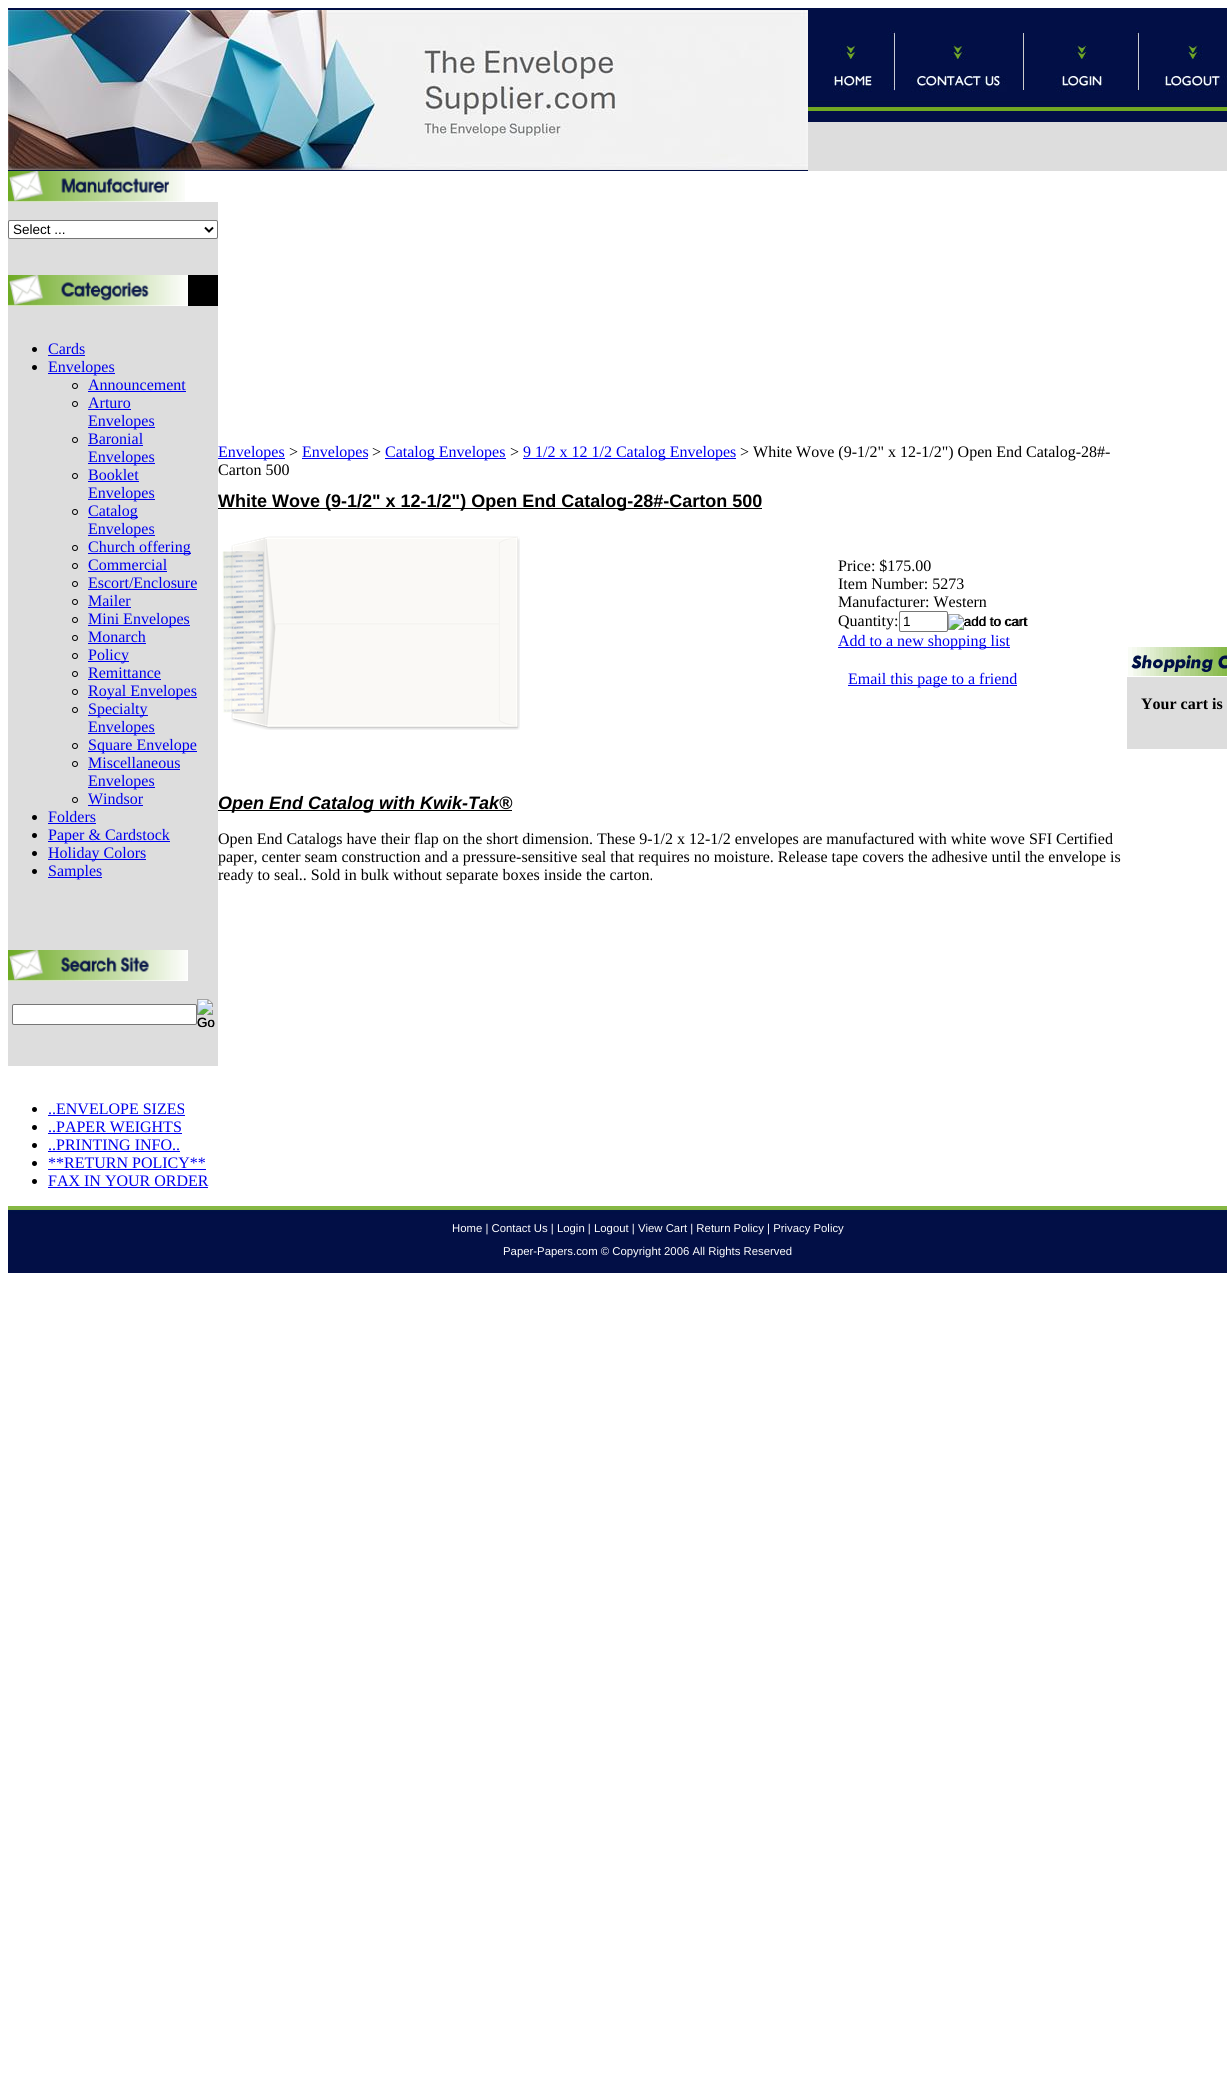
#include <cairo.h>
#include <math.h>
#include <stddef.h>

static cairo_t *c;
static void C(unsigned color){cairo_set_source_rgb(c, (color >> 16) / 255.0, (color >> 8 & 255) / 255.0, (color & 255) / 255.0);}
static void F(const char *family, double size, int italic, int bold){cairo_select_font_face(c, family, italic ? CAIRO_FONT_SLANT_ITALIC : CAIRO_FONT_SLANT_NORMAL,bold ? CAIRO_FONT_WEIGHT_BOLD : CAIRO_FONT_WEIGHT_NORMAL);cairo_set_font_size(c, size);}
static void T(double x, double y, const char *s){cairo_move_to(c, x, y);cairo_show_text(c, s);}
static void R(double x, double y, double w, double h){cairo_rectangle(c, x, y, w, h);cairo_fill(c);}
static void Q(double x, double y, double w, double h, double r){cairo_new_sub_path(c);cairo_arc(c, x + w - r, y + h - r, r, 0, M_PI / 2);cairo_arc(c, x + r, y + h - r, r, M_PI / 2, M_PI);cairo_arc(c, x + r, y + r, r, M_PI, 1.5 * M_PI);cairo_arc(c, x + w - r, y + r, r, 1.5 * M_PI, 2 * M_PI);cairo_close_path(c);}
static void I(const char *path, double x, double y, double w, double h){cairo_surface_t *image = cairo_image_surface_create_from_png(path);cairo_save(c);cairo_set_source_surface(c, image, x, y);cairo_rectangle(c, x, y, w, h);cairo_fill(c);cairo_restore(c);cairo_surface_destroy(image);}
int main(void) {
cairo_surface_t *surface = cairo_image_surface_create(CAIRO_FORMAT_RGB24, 1227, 2084);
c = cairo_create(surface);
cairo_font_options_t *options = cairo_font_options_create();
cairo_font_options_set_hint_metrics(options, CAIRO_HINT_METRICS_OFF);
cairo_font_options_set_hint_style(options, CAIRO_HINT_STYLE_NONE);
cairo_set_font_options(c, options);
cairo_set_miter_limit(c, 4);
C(0xffffff);
cairo_paint(c);
I("1.png",8,8,800,163);
I("2.png",8,10,800,160);
I("3.png",808,8,87,114);
I("4.png",808,28,87,83);
I("5.png",895,8,129,114);
I("6.png",895,30,129,81);
I("7.png",1024,8,115,114);
I("8.png",1024,28,115,83);
I("9.png",1139,8,88,114);
I("10.png",1139,44,88,67);
C(0xdddddd);
R(808,122,419,49);
I("11.png",8,171,177,31);
R(8,202,210,73);
C(0xffffff);
Q(8.5,220.5,209,18,1.5);
cairo_fill_preserve(c);
C(0x767676);
cairo_set_line_width(c,1);
cairo_stroke(c);
cairo_new_path(c);
cairo_move_to(c,205,227.5);
cairo_line_to(c,209,231.5);
cairo_line_to(c,213,227.5);
C(0x000000);
cairo_set_line_width(c,2);
cairo_stroke(c);
F("Liberation Sans",13.5,0,0);
T(13,234,"Select ...");
R(188,275,30,31);
I("12.png",8,275,180,31);
C(0xdddddd);
R(8,306,210,644);
C(0x000000);
cairo_arc(c,34.5,349.5,2.5,0,2 * M_PI);
cairo_fill(c);
F("Liberation Serif",16,0,0);
C(0x0000ee);
T(48,354,"Cards");
R(48,355,37,1);
C(0x000000);
cairo_new_path(c);
cairo_arc(c,34.5,367.5,2.5,0,2 * M_PI);
cairo_fill(c);
C(0x0000ee);
R(48,373,67,1);
T(48,372,"Envelopes");
cairo_new_path(c);
cairo_arc(c,75,386,2.5,0,2 * M_PI);
C(0x000000);
cairo_set_line_width(c,1);
cairo_stroke(c);
C(0x0000ee);
T(88,390,"Announcement");
R(88,391,98,1);
cairo_new_path(c);
cairo_arc(c,75,404,2.5,0,2 * M_PI);
C(0x000000);
cairo_stroke(c);
C(0x0000ee);
T(88,408,"Arturo");
R(88,409,43,1);
R(88,427,67,1);
T(88,426,"Envelopes");
cairo_new_path(c);
cairo_arc(c,75,440,2.5,0,2 * M_PI);
C(0x000000);
cairo_stroke(c);
C(0x0000ee);
T(88,444,"Baronial");
R(88,445,55,1);
R(88,463,67,1);
T(88,462,"Envelopes");
cairo_new_path(c);
cairo_arc(c,75,476,2.5,0,2 * M_PI);
C(0x000000);
cairo_stroke(c);
C(0x0000ee);
T(88,480,"Booklet");
R(88,481,51,1);
R(88,499,67,1);
T(88,498,"Envelopes");
cairo_new_path(c);
cairo_arc(c,75,512,2.5,0,2 * M_PI);
C(0x000000);
cairo_stroke(c);
C(0x0000ee);
R(88,517,50,1);
T(88,516,"Catalog");
R(88,535,67,1);
T(88,534,"Envelopes");
cairo_new_path(c);
cairo_arc(c,75,548,2.5,0,2 * M_PI);
C(0x000000);
cairo_stroke(c);
C(0x0000ee);
R(88,553,103,1);
T(88,552,"Church offering");
cairo_new_path(c);
cairo_arc(c,75,566,2.5,0,2 * M_PI);
C(0x000000);
cairo_stroke(c);
C(0x0000ee);
T(88,570,"Commercial");
R(88,571,79,1);
cairo_new_path(c);
cairo_arc(c,75,584,2.5,0,2 * M_PI);
C(0x000000);
cairo_stroke(c);
C(0x0000ee);
T(88,588,"Escort/Enclosure");
R(88,589,109,1);
cairo_new_path(c);
cairo_arc(c,75,602,2.5,0,2 * M_PI);
C(0x000000);
cairo_stroke(c);
C(0x0000ee);
T(88,606,"Mailer");
R(88,607,43,1);
cairo_new_path(c);
cairo_arc(c,75,620,2.5,0,2 * M_PI);
C(0x000000);
cairo_stroke(c);
C(0x0000ee);
R(88,625,102,1);
T(88,624,"Mini Envelopes");
cairo_new_path(c);
cairo_arc(c,75,638,2.5,0,2 * M_PI);
C(0x000000);
cairo_stroke(c);
C(0x0000ee);
T(88,642,"Monarch");
R(88,643,58,1);
cairo_new_path(c);
cairo_arc(c,75,656,2.5,0,2 * M_PI);
C(0x000000);
cairo_stroke(c);
C(0x0000ee);
R(88,661,41,1);
T(88,660,"Policy");
cairo_new_path(c);
cairo_arc(c,75,674,2.5,0,2 * M_PI);
C(0x000000);
cairo_stroke(c);
C(0x0000ee);
T(88,678,"Remittance");
R(88,679,73,1);
cairo_new_path(c);
cairo_arc(c,75,692,2.5,0,2 * M_PI);
C(0x000000);
cairo_stroke(c);
C(0x0000ee);
R(88,697,109,1);
T(88,696,"Royal Envelopes");
cairo_new_path(c);
cairo_arc(c,75,710,2.5,0,2 * M_PI);
C(0x000000);
cairo_stroke(c);
C(0x0000ee);
R(88,715,60,1);
T(88,714,"Specialty");
R(88,733,67,1);
T(88,732,"Envelopes");
cairo_new_path(c);
cairo_arc(c,75,746,2.5,0,2 * M_PI);
C(0x000000);
cairo_stroke(c);
C(0x0000ee);
R(88,751,109,1);
T(88,750,"Square Envelope");
cairo_new_path(c);
cairo_arc(c,75,764,2.5,0,2 * M_PI);
C(0x000000);
cairo_stroke(c);
C(0x0000ee);
T(88,768,"Miscellaneous");
R(88,769,92,1);
R(88,787,67,1);
T(88,786,"Envelopes");
cairo_new_path(c);
cairo_arc(c,75,800,2.5,0,2 * M_PI);
C(0x000000);
cairo_stroke(c);
C(0x0000ee);
T(88,804,"Windsor");
R(88,805,55,1);
C(0x000000);
cairo_new_path(c);
cairo_arc(c,34.5,817.5,2.5,0,2 * M_PI);
cairo_fill(c);
C(0x0000ee);
T(48,822,"Folders");
R(48,823,48,1);
C(0x000000);
cairo_new_path(c);
cairo_arc(c,34.5,835.5,2.5,0,2 * M_PI);
cairo_fill(c);
C(0x0000ee);
R(48,841,122,1);
T(48,840,"Paper & Cardstock");
C(0x000000);
cairo_new_path(c);
cairo_arc(c,34.5,853.5,2.5,0,2 * M_PI);
cairo_fill(c);
C(0x0000ee);
R(48,859,98,1);
T(48,858,"Holiday Colors");
C(0x000000);
cairo_new_path(c);
cairo_arc(c,34.5,871.5,2.5,0,2 * M_PI);
cairo_fill(c);
C(0x0000ee);
R(48,877,54,1);
T(48,876,"Samples");
C(0xdddddd);
R(188,950,30,31);
I("13.png",8,950,180,31);
R(8,981,210,85);
C(0xffffff);
Q(12.5,1004.5,184,20,1.5);
cairo_fill_preserve(c);
C(0x767676);
cairo_stroke(c);
I("14.png",197,999,18,28);
F("Liberation Sans",13.5,0,0);
C(0x000000);
T(197,1027,"Go");
cairo_new_path(c);
cairo_arc(c,34.5,1109.5,2.5,0,2 * M_PI);
cairo_fill(c);
F("Liberation Serif",16,0,0);
C(0x0000ee);
T(48,1114,"..ENVELOPE SIZES");
R(48,1115,137,1);
C(0x000000);
cairo_new_path(c);
cairo_arc(c,34.5,1127.5,2.5,0,2 * M_PI);
cairo_fill(c);
C(0x0000ee);
T(48,1132,"..PAPER WEIGHTS");
R(48,1133,134,1);
C(0x000000);
cairo_new_path(c);
cairo_arc(c,34.5,1145.5,2.5,0,2 * M_PI);
cairo_fill(c);
C(0x0000ee);
T(48,1150,"..PRINTING INFO..");
R(48,1151,132,1);
C(0x000000);
cairo_new_path(c);
cairo_arc(c,34.5,1163.5,2.5,0,2 * M_PI);
cairo_fill(c);
C(0x0000ee);
T(48,1168,"**RETURN POLICY**");
R(48,1169,158,1);
C(0x000000);
cairo_new_path(c);
cairo_arc(c,34.5,1181.5,2.5,0,2 * M_PI);
cairo_fill(c);
C(0x0000ee);
T(48,1186,"FAX IN YOUR ORDER");
R(48,1187,160,1);
R(218,458,67,1);
T(218,457,"Envelopes");
C(0x000000);
T(289,457,">");
C(0x0000ee);
R(302,458,66,1);
T(302,457,"Envelopes");
C(0x000000);
T(372,457,">");
C(0x0000ee);
R(385,458,121,1);
T(385,457,"Catalog Envelopes");
C(0x000000);
T(510,457,">");
C(0x0000ee);
R(523,458,213,1);
T(523,457,"9 1/2 x 12 1/2 Catalog Envelopes");
C(0x000000);
T(740,457,"> White Wove (9-1/2\" x 12-1/2\") Open End Catalog-28#-");
T(218,475,"Carton 500");
R(218,508,544,1);
F("Liberation Sans",18,0,1);
T(218,507,"White Wove (9-1/2\" x 12-1/2\") Open End Catalog-28#-Carton 500");
I("15.png",222,536,298,194);
F("Liberation Serif",16,0,0);
T(838,571,"Price: $175.00");
T(838,589,"Item Number: 5273");
T(838,607,"Manufacturer: Western");
T(838,626,"Quantity:");
Q(899.5,611.5,48,20,1.5);
C(0x767676);
cairo_stroke(c);
F("Liberation Sans",13.5,0,0);
C(0x000000);
T(903,626,"1");
I("16.png",948,614,79,16);
T(964,626,"add to cart");
C(0x0000ee);
R(838,647,172,1);
F("Liberation Serif",16,0,0);
T(838,646,"Add to a new shopping list");
R(848,685,169,1);
T(848,684,"Email this page to a friend");
C(0x000000);
R(218,810,294,1);
F("Liberation Sans",18,1,1);
T(218,809,"Open End Catalog with Kwik-Tak®");
F("Liberation Serif",16,0,0);
T(218,844,"Open End Catalogs have their flap on the short dimension. These 9-1/2 x 12-1/2 envelopes are manufactured with white wove SFI Certified");
T(218,862,"paper, center seam construction and a pressure-sensitive seal that requires no moisture. Release tape covers the adhesive until the envelope is");
T(218,880,"ready to seal.. Sold in bulk without separate boxes inside the carton.");
C(0xdddddd);
R(1127,677,100,72);
I("17.png",1127,646,100,31);
F("Liberation Serif",16,0,1);
C(0x000000);
T(1141,709,"Your cart is");
I("18.png",8,1206,1219,67);
F("Liberation Sans",11.35,0,0);
C(0xffffff);
T(452,1232,"Home | Contact Us | Login | Logout | View Cart | Return Policy | Privacy Policy");
T(503,1255,"Paper-Papers.com © Copyright 2006 All Rights Reserved");
cairo_surface_write_to_png(surface, "o.png");
cairo_font_options_destroy(options);
cairo_destroy(c);
cairo_surface_destroy(surface);
return 0;
}
